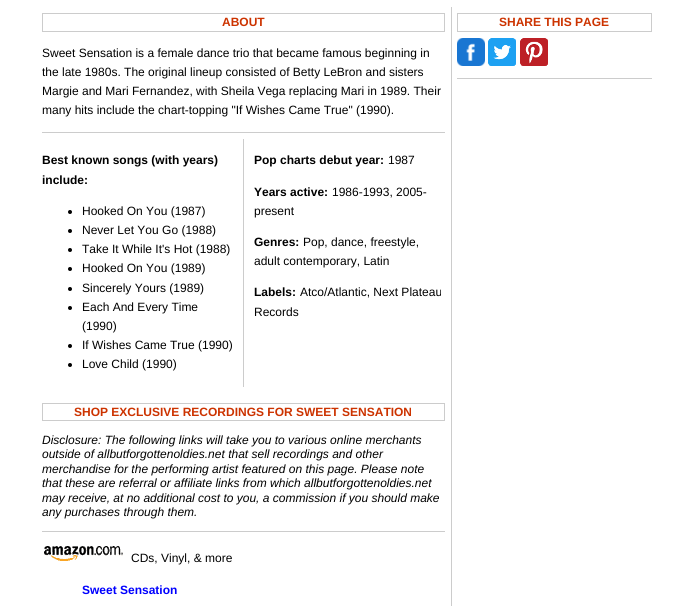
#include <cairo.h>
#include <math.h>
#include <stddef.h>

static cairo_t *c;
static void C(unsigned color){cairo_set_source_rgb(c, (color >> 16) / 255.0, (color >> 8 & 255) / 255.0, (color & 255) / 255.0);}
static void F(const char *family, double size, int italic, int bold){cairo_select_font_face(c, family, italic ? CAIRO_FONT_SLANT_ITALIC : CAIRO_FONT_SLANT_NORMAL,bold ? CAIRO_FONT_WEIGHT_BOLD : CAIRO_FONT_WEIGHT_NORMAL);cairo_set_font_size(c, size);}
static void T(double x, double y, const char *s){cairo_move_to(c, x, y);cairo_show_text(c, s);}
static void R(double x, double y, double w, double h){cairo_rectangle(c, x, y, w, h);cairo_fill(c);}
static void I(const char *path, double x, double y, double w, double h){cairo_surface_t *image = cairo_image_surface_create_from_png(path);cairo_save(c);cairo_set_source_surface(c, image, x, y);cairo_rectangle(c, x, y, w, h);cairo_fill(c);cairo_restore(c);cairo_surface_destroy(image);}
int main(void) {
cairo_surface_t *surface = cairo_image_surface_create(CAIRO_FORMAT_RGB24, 694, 606);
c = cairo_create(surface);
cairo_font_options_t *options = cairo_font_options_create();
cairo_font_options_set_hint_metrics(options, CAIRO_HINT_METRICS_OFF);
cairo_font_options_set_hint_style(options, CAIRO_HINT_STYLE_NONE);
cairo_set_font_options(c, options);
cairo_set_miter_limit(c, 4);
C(0xffffff);
cairo_paint(c);
C(0xcccccc);
R(451,7,1,599);
cairo_rectangle(c,42.5,13.5,402,18);
cairo_set_line_width(c,1);
cairo_stroke(c);
F("Liberation Sans",12,0,1);
C(0xcc3300);
T(222,26,"ABOUT");
F("Liberation Sans",12,0,0);
C(0x000000);
T(42,57,"Sweet Sensation is a female dance trio that became famous beginning in");
T(42,76,"the late 1980s. The original lineup consisted of Betty LeBron and sisters");
T(42,95,"Margie and Mari Fernandez, with Sheila Vega replacing Mari in 1989. Their");
T(42,114,"many hits include the chart-topping \"If Wishes Came True\" (1990).");
C(0xcccccc);
R(42,132,403,1);
F("Liberation Sans",12,0,1);
C(0x000000);
T(42,164,"Best known songs (with years)");
T(42,184,"include:");
cairo_new_path(c);
cairo_arc(c,70,212,2,0,2 * M_PI);
cairo_fill(c);
F("Liberation Sans",12,0,0);
T(82,215,"Hooked On You (1987)");
cairo_new_path(c);
cairo_arc(c,70,231,2,0,2 * M_PI);
cairo_fill(c);
T(82,234,"Never Let You Go (1988)");
cairo_new_path(c);
cairo_arc(c,70,250,2,0,2 * M_PI);
cairo_fill(c);
T(82,253,"Take It While It's Hot (1988)");
cairo_new_path(c);
cairo_arc(c,70,269,2,0,2 * M_PI);
cairo_fill(c);
T(82,272,"Hooked On You (1989)");
cairo_new_path(c);
cairo_arc(c,70,289,2,0,2 * M_PI);
cairo_fill(c);
T(82,292,"Sincerely Yours (1989)");
cairo_new_path(c);
cairo_arc(c,70,308,2,0,2 * M_PI);
cairo_fill(c);
T(82,311,"Each And Every Time");
T(82,330,"(1990)");
cairo_new_path(c);
cairo_arc(c,70,346,2,0,2 * M_PI);
cairo_fill(c);
T(82,349,"If Wishes Came True (1990)");
cairo_new_path(c);
cairo_arc(c,70,365,2,0,2 * M_PI);
cairo_fill(c);
T(82,368,"Love Child (1990)");
C(0xcccccc);
R(243,139,1,248);
F("Liberation Sans",12,0,1);
C(0x000000);
T(254,164,"Pop charts debut year:");
F("Liberation Sans",12,0,0);
T(388,164,"1987");
F("Liberation Sans",12,0,1);
T(254,196,"Years active:");
F("Liberation Sans",12,0,0);
T(332,196,"1986-1993, 2005-");
T(254,215,"present");
F("Liberation Sans",12,0,1);
T(254,246,"Genres:");
F("Liberation Sans",12,0,0);
T(303,246,"Pop, dance, freestyle,");
T(254,265,"adult contemporary, Latin");
F("Liberation Sans",12,0,1);
T(254,296,"Labels:");
F("Liberation Sans",12,0,0);
T(300,296,"Atco/Atlantic, Next Plateau");
T(254,316,"Records");
cairo_rectangle(c,42.5,403.5,402,17);
C(0xcccccc);
cairo_stroke(c);
F("Liberation Sans",12,0,1);
C(0xcc3300);
T(74,416,"SHOP EXCLUSIVE RECORDINGS FOR SWEET SENSATION");
F("Liberation Sans",12,1,0);
C(0x000000);
T(42,444,"Disclosure: The following links will take you to various online merchants");
T(42,458,"outside of allbutforgottenoldies.net that sell recordings and other");
T(42,473,"merchandise for the performing artist featured on this page. Please note");
T(42,487,"that these are referral or affiliate links from which allbutforgottenoldies.net");
T(42,502,"may receive, at no additional cost to you, a commission if you should make");
T(42,516,"any purchases through them.");
C(0xcccccc);
R(42,531,403,1);
I("1.png",44,546,79,15);
F("Liberation Sans",12,0,0);
C(0x000000);
T(131,562,"CDs, Vinyl, & more");
F("Liberation Sans",12,0,1);
C(0x0000ff);
T(82,594,"Sweet Sensation");
cairo_rectangle(c,457.5,13.5,194,18);
C(0xcccccc);
cairo_stroke(c);
C(0xcc3300);
T(499,26,"SHARE THIS PAGE");
I("2.png",457,38,28,28);
I("3.png",488,38,28,28);
I("4.png",520,38,28,28);
C(0xcccccc);
R(457,78,195,1);
cairo_surface_write_to_png(surface, "o.png");
cairo_font_options_destroy(options);
cairo_destroy(c);
cairo_surface_destroy(surface);
return 0;
}
